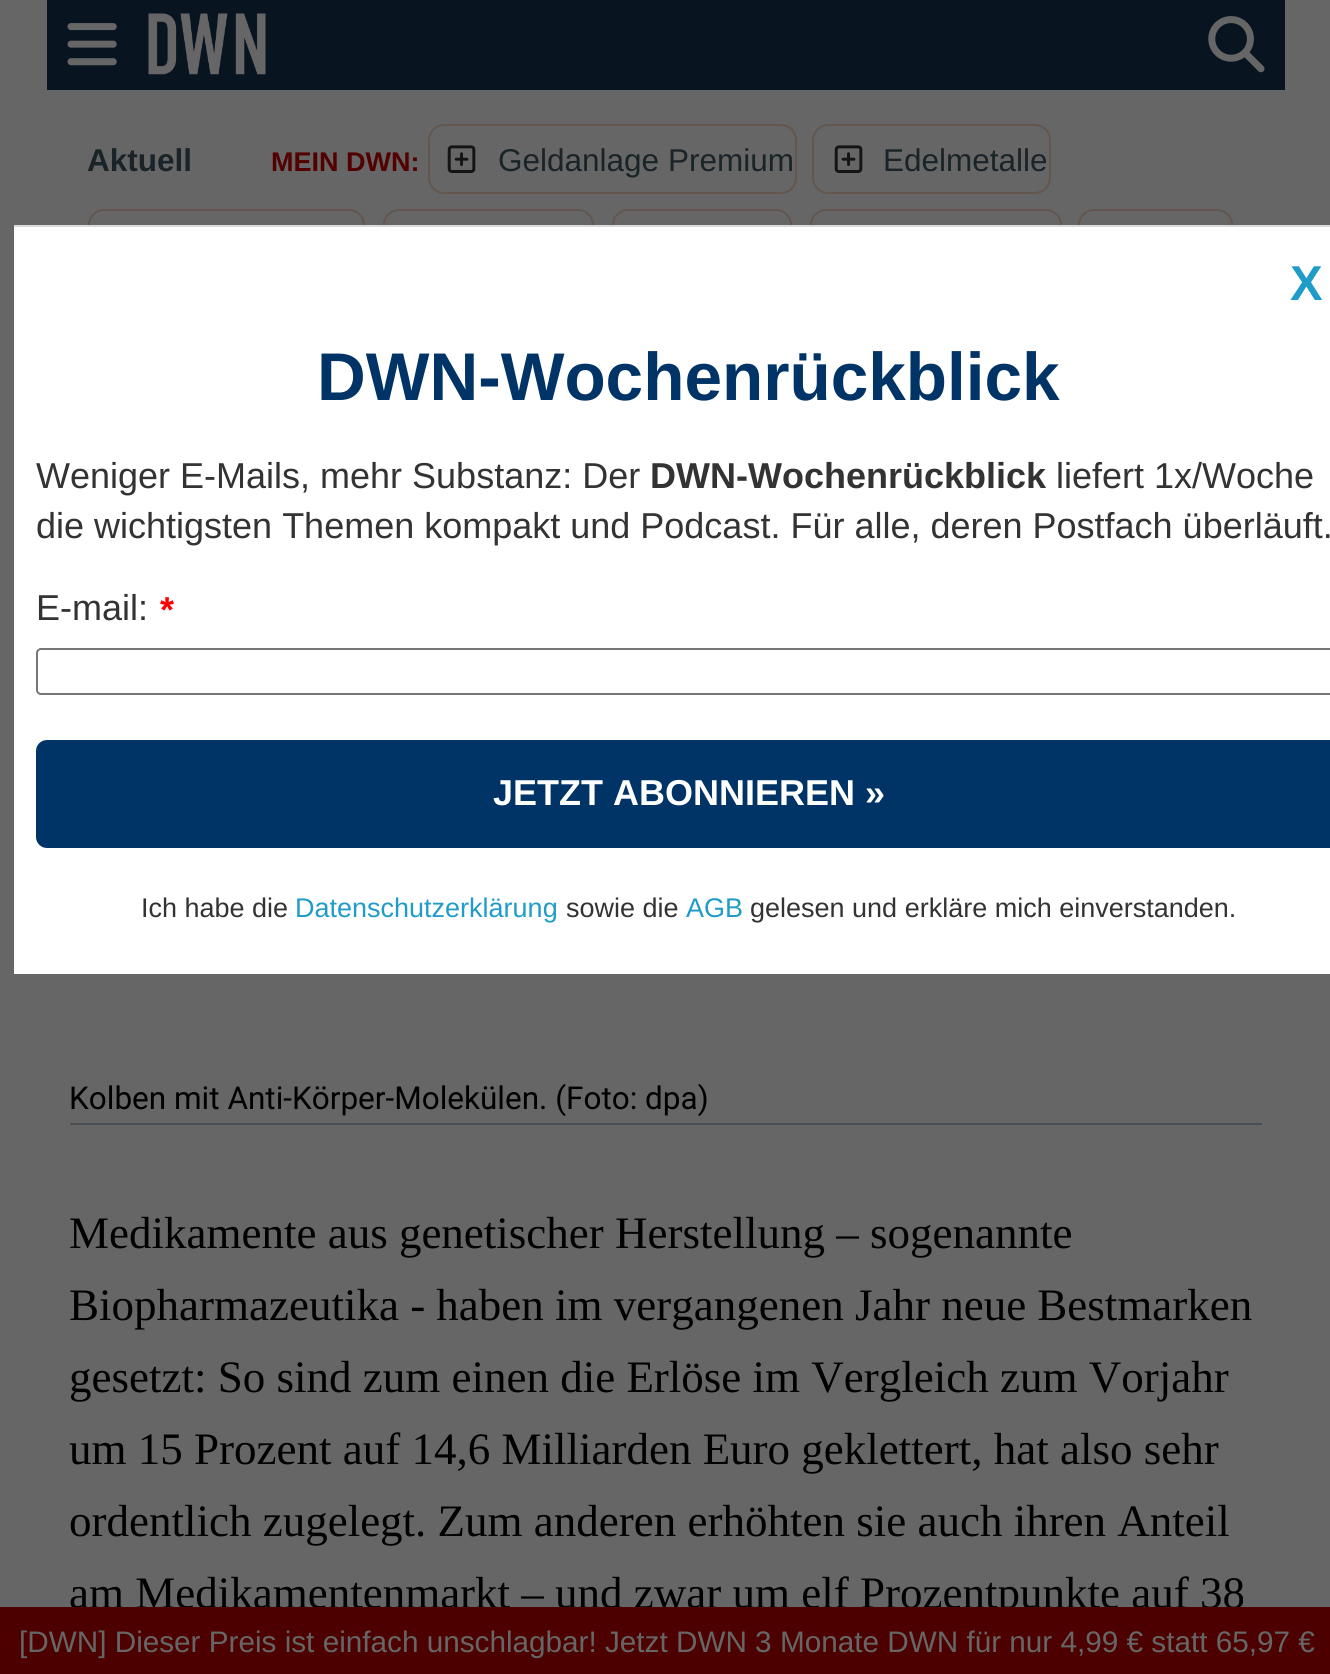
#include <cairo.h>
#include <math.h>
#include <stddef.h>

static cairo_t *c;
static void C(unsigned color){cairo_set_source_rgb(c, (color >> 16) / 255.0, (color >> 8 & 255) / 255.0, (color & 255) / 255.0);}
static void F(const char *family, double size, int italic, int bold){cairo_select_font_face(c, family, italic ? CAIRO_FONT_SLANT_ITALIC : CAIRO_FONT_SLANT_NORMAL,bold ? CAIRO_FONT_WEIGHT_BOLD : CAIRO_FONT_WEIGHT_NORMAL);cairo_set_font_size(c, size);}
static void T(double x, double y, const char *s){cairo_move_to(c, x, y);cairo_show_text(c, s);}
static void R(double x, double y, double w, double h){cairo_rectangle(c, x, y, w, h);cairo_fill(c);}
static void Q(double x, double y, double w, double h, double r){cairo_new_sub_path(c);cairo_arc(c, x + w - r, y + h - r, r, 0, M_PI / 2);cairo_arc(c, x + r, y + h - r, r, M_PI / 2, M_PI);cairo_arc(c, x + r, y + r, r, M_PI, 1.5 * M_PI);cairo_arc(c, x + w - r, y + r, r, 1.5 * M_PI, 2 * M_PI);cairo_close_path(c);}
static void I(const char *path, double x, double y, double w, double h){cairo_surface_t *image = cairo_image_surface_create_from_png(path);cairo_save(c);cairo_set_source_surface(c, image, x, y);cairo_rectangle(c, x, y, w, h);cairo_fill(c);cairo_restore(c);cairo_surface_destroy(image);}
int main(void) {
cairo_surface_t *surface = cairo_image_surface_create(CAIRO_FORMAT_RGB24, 1330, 1674);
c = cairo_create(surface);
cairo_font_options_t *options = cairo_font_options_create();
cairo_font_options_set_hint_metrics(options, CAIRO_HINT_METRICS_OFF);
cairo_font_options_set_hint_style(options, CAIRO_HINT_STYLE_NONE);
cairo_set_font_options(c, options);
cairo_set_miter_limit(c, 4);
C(0x666666);
cairo_paint(c);
C(0x081420);
R(47,0,1238,90);
I("1.png",67,23,50,43);
I("2.png",148,13,118,62);
I("3.png",1208,16,57,57);
F("Liberation Sans",31.5,0,1);
C(0x1a2327);
T(87,171,"Aktuell");
F("Liberation Sans",27,0,1);
C(0x520000);
T(271,171,"MEIN DWN:");
Q(429,125,367,68,15);
C(0x62564f);
cairo_stroke(c);
C(0x666666);
cairo_new_path(c);
cairo_move_to(c,444,126);
cairo_line_to(c,495,126);
cairo_line_to(c,495,191);
cairo_line_to(c,444,191);
cairo_curve_to(c,436.5,191,430,184.5,430,177);
cairo_line_to(c,430,140);
cairo_curve_to(c,430,132.5,436.5,126,444,126);
cairo_close_path(c);
cairo_fill(c);
I("4.png",447,145,29,28);
F("Liberation Sans",31.5,0,0);
C(0x1a2327);
T(498,171,"Geldanlage Premium");
Q(813,125,237,68,15);
C(0x62564f);
cairo_stroke(c);
C(0x666666);
cairo_new_path(c);
cairo_move_to(c,829,126);
cairo_line_to(c,882,126);
cairo_line_to(c,882,191);
cairo_line_to(c,829,191);
cairo_curve_to(c,821.5,191,815,184.5,815,177);
cairo_line_to(c,815,140);
cairo_curve_to(c,815,132.5,821.5,126,829,126);
cairo_close_path(c);
cairo_fill(c);
I("4.png",834,145,29,28);
C(0x1a2327);
T(883,171,"Edelmetalle");
Q(89,210,275,68,15);
C(0x62564f);
cairo_stroke(c);
C(0x666666);
cairo_new_path(c);
cairo_move_to(c,104,212);
cairo_line_to(c,155,212);
cairo_line_to(c,155,277);
cairo_line_to(c,104,277);
cairo_curve_to(c,96.5,277,90,270.5,90,263);
cairo_line_to(c,90,226);
cairo_curve_to(c,90,218.5,96.5,212,104,212);
cairo_close_path(c);
cairo_fill(c);
Q(384,210,209,68,15);
C(0x62564f);
cairo_stroke(c);
C(0x666666);
cairo_new_path(c);
cairo_move_to(c,399,212);
cairo_line_to(c,450,212);
cairo_line_to(c,450,277);
cairo_line_to(c,399,277);
cairo_curve_to(c,391.5,277,385,270.5,385,263);
cairo_line_to(c,385,226);
cairo_curve_to(c,385,218.5,391.5,212,399,212);
cairo_close_path(c);
cairo_fill(c);
Q(613,210,178,68,15);
C(0x62564f);
cairo_stroke(c);
C(0x666666);
cairo_new_path(c);
cairo_move_to(c,628,212);
cairo_line_to(c,680,212);
cairo_line_to(c,680,277);
cairo_line_to(c,628,277);
cairo_curve_to(c,620.5,277,614,270.5,614,263);
cairo_line_to(c,614,226);
cairo_curve_to(c,614,218.5,620.5,212,628,212);
cairo_close_path(c);
cairo_fill(c);
Q(811,210,250,68,15);
C(0x62564f);
cairo_stroke(c);
C(0x666666);
cairo_new_path(c);
cairo_move_to(c,826,212);
cairo_line_to(c,878,212);
cairo_line_to(c,878,277);
cairo_line_to(c,826,277);
cairo_curve_to(c,818.5,277,812,270.5,812,263);
cairo_line_to(c,812,226);
cairo_curve_to(c,812,218.5,818.5,212,826,212);
cairo_close_path(c);
cairo_fill(c);
Q(1079,210,153,68,15);
C(0x62564f);
cairo_stroke(c);
C(0x666666);
cairo_new_path(c);
cairo_move_to(c,1094,212);
cairo_line_to(c,1148,212);
cairo_line_to(c,1148,277);
cairo_line_to(c,1094,277);
cairo_curve_to(c,1086.5,277,1080,270.5,1080,263);
cairo_line_to(c,1080,226);
cairo_curve_to(c,1080,218.5,1086.5,212,1094,212);
cairo_close_path(c);
cairo_fill(c);
C(0xffffff);
R(14,227,1316,747);
C(0xdadada);
R(14,225,1316,2);
F("Liberation Sans",49,0,1);
C(0x209cc9);
T(1290,300,"X");
F("Liberation Sans",67.5,0,1);
C(0x003366);
T(317,400,"DWN-Wochenrückblick");
F("Liberation Sans",36,0,0);
C(0x333333);
T(36,488,"Weniger E-Mails, mehr Substanz: Der");
F("Liberation Sans",36,0,1);
T(650,488,"DWN-Wochenrückblick");
F("Liberation Sans",36,0,0);
T(1056,488,"liefert 1x/Woche");
T(36,538,"die wichtigsten Themen kompakt und Podcast. Für alle, deren Postfach überläuft.");
T(36,620,"E-mail:");
F("Liberation Sans",36,0,1);
C(0xff0000);
T(160,622,"*");
Q(37,649,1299,45,4);
C(0x767676);
cairo_stroke(c);
C(0x003366);
Q(36,740,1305,108,11);
cairo_fill(c);
C(0xffffff);
T(493,805,"JETZT ABONNIEREN »");
F("Liberation Sans",27,0,0);
C(0x333333);
T(141,917,"Ich habe die");
C(0x209cc9);
T(295,917,"Datenschutzerklärung");
C(0x333333);
T(566,917,"sowie die");
C(0x209cc9);
T(686,917,"AGB");
C(0x333333);
T(750,917,"gelesen und erkläre mich einverstanden.");
C(0x494e52);
R(70,1123,1192,2);
F("Roboto",31.5,0,0);
C(0x000000);
T(69,1109,"Kolben mit Anti-Körper-Molekülen. (Foto: dpa)");
F("Liberation Serif",45,0,0);
T(69,1248,"Medikamente aus genetischer Herstellung – sogenannte");
T(69,1320,"Biopharmazeutika - haben im vergangenen Jahr neue Bestmarken");
T(69,1392,"gesetzt: So sind zum einen die Erlöse im Vergleich zum Vorjahr");
T(69,1464,"um 15 Prozent auf 14,6 Milliarden Euro geklettert, hat also sehr");
T(69,1536,"ordentlich zugelegt. Zum anderen erhöhten sie auch ihren Anteil");
T(69,1608,"am Medikamentenmarkt – und zwar um elf Prozentpunkte auf 38");
C(0x4d0000);
R(0,1607,1330,67);
F("Liberation Sans",29.7,0,0);
C(0x666666);
T(19,1652,"[DWN] Dieser Preis ist einfach unschlagbar! Jetzt DWN 3 Monate DWN für nur 4,99 € statt 65,97 €");
cairo_surface_write_to_png(surface, "o.png");
cairo_font_options_destroy(options);
cairo_destroy(c);
cairo_surface_destroy(surface);
return 0;
}
